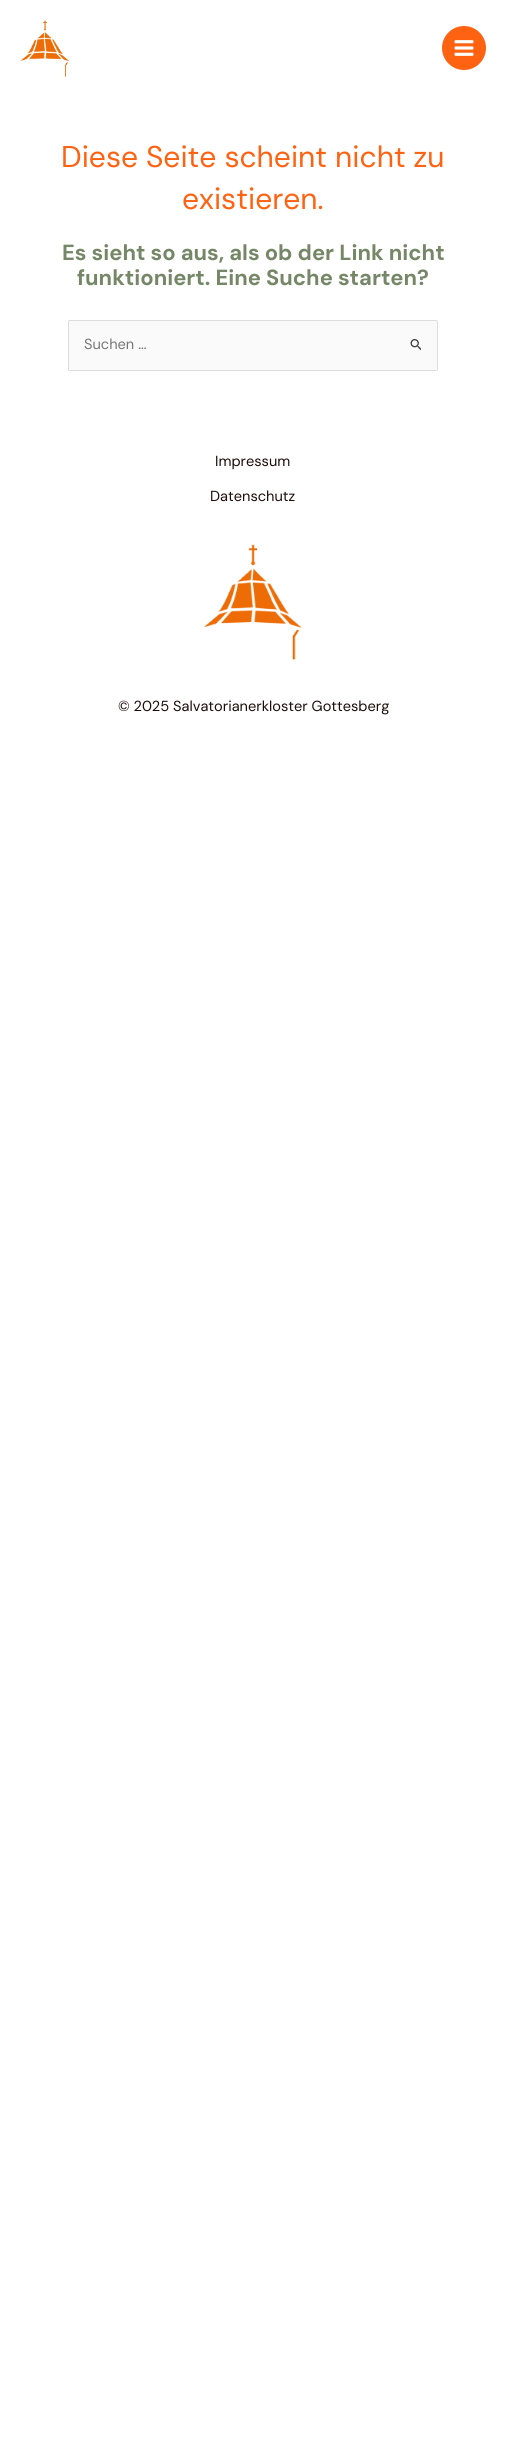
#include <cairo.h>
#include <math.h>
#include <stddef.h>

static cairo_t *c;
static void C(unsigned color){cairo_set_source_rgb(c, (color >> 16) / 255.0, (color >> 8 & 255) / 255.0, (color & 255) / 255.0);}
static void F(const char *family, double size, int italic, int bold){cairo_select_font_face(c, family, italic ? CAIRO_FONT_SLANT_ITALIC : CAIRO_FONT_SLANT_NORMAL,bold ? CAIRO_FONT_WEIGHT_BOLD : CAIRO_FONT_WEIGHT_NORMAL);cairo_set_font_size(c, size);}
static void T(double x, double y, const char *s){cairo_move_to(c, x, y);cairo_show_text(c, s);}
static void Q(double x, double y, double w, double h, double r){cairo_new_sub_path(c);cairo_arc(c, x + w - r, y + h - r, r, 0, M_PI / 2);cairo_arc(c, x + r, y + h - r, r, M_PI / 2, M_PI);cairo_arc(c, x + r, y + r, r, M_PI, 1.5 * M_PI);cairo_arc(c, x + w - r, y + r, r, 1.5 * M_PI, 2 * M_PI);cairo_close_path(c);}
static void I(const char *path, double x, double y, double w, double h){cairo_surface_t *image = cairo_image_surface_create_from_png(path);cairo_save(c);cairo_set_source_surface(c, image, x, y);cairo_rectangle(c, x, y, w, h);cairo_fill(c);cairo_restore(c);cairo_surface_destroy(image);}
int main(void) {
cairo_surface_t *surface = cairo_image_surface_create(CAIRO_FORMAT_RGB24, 506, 2447);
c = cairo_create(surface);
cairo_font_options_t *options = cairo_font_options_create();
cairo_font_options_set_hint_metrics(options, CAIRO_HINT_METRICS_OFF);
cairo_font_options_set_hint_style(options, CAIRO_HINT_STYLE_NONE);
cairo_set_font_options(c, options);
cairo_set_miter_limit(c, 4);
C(0xffffff);
cairo_paint(c);
I("1.png",20,20,50,57);
C(0xff6210);
cairo_arc(c,464,48,22,0,2 * M_PI);
cairo_fill(c);
I("2.png",454,40,20,16);
F("DM Sans",30,0,0);
T(61,167,"Diese Seite scheint nicht zu");
T(182,209,"existieren.");
F("DM Sans",21.9,0,1);
C(0x758767);
T(62,260,"Es sieht so aus, als ob der Link nicht");
T(77,285,"funktioniert. Eine Suche starten?");
C(0xfafafa);
Q(68.5,320.5,369,50,1.5);
cairo_fill_preserve(c);
C(0xdddddd);
cairo_set_line_width(c,1);
cairo_stroke(c);
F("DM Sans",14.6,0,0);
C(0x757575);
T(84,349,"Suchen …");
I("3.png",410,339,11,12);
C(0x1c0d0a);
T(215,466,"Impressum");
T(210,501,"Datenschutz");
I("4.png",204,544,98,116);
T(118,711,"© 2025 Salvatorianerkloster Gottesberg");
cairo_surface_write_to_png(surface, "o.png");
cairo_font_options_destroy(options);
cairo_destroy(c);
cairo_surface_destroy(surface);
return 0;
}
